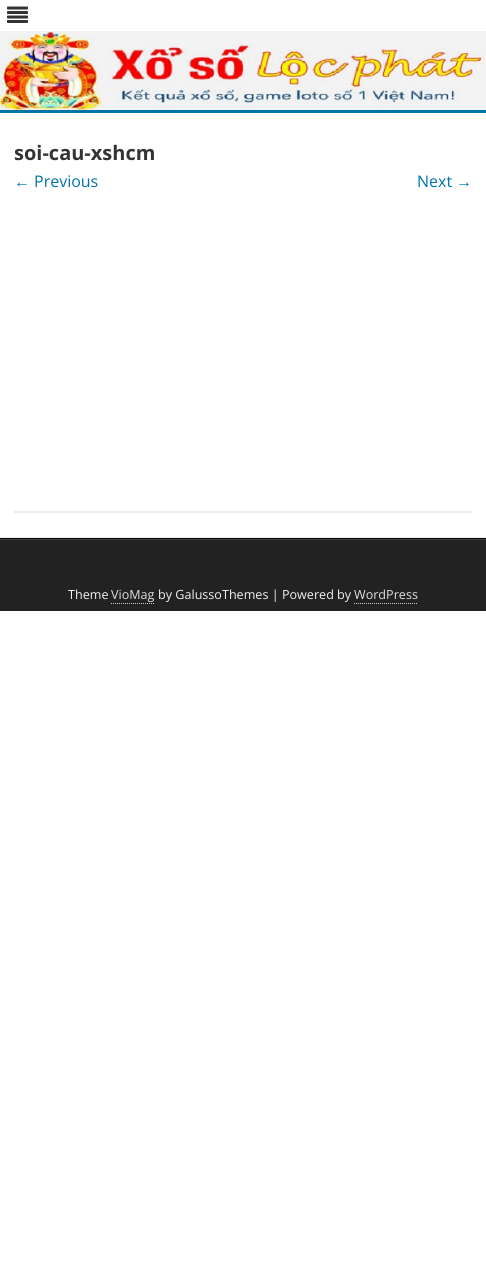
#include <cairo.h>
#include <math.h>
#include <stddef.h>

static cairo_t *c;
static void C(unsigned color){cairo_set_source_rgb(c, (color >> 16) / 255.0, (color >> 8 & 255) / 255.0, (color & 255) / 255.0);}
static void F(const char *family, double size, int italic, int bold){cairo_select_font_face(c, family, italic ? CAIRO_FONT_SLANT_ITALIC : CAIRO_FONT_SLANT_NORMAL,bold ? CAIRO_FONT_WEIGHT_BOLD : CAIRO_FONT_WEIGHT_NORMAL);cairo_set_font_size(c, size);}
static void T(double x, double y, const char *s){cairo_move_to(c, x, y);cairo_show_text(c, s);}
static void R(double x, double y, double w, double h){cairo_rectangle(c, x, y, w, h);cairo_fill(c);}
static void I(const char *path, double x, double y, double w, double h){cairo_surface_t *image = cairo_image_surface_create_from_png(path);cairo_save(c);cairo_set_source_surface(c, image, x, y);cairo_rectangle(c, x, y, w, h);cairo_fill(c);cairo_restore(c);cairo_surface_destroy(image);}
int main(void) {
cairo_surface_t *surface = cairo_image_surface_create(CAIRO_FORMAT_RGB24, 486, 1286);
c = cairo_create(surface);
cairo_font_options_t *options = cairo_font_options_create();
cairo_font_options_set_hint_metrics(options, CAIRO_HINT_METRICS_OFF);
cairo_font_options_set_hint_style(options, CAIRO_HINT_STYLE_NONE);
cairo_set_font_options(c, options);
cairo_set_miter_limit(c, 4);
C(0xffffff);
cairo_paint(c);
C(0xf2f2f2);
R(0,31,486,1);
I("1.png",7,6,21,17);
I("2.png",0,32,486,78);
C(0x0073aa);
R(0,110,486,3);
F("Open Sans",20,0,1);
C(0x333333);
T(14,160,"soi-cau-xshcm");
F("Liberation Sans",16,0,0);
C(0x0073aa);
T(14,187,"←");
F("Open Sans",16,0,0);
T(34,187,"Previous");
T(417,187,"Next");
F("Liberation Sans",16,0,0);
T(456,187,"→");
C(0xeaeaea);
R(14,511,458,2);
C(0x222222);
R(0,540,486,71);
C(0xededed);
R(0,537,486,1);
C(0x040404);
R(0,538,486,1);
C(0x444444);
R(0,539,486,1);
F("Open Sans",12.6,0,0);
C(0xf2f2f2);
T(68,599,"Theme");
C(0xe0e0e0);
T(111,599,"VioMag");
cairo_new_path(c);
cairo_move_to(c,111,603.5);
cairo_line_to(c,155,603.5);
C(0xcdcdcd);
cairo_set_line_width(c,1);
cairo_set_dash(c,(double[]){1,1},2,0);
cairo_stroke(c);
C(0xf2f2f2);
T(158,599,"by GalussoThemes | Powered by");
C(0xe0e0e0);
T(354,599,"WordPress");
cairo_new_path(c);
cairo_move_to(c,354,603.5);
cairo_line_to(c,418,603.5);
C(0xcdcdcd);
cairo_stroke(c);
cairo_surface_write_to_png(surface, "o.png");
cairo_font_options_destroy(options);
cairo_destroy(c);
cairo_surface_destroy(surface);
return 0;
}
